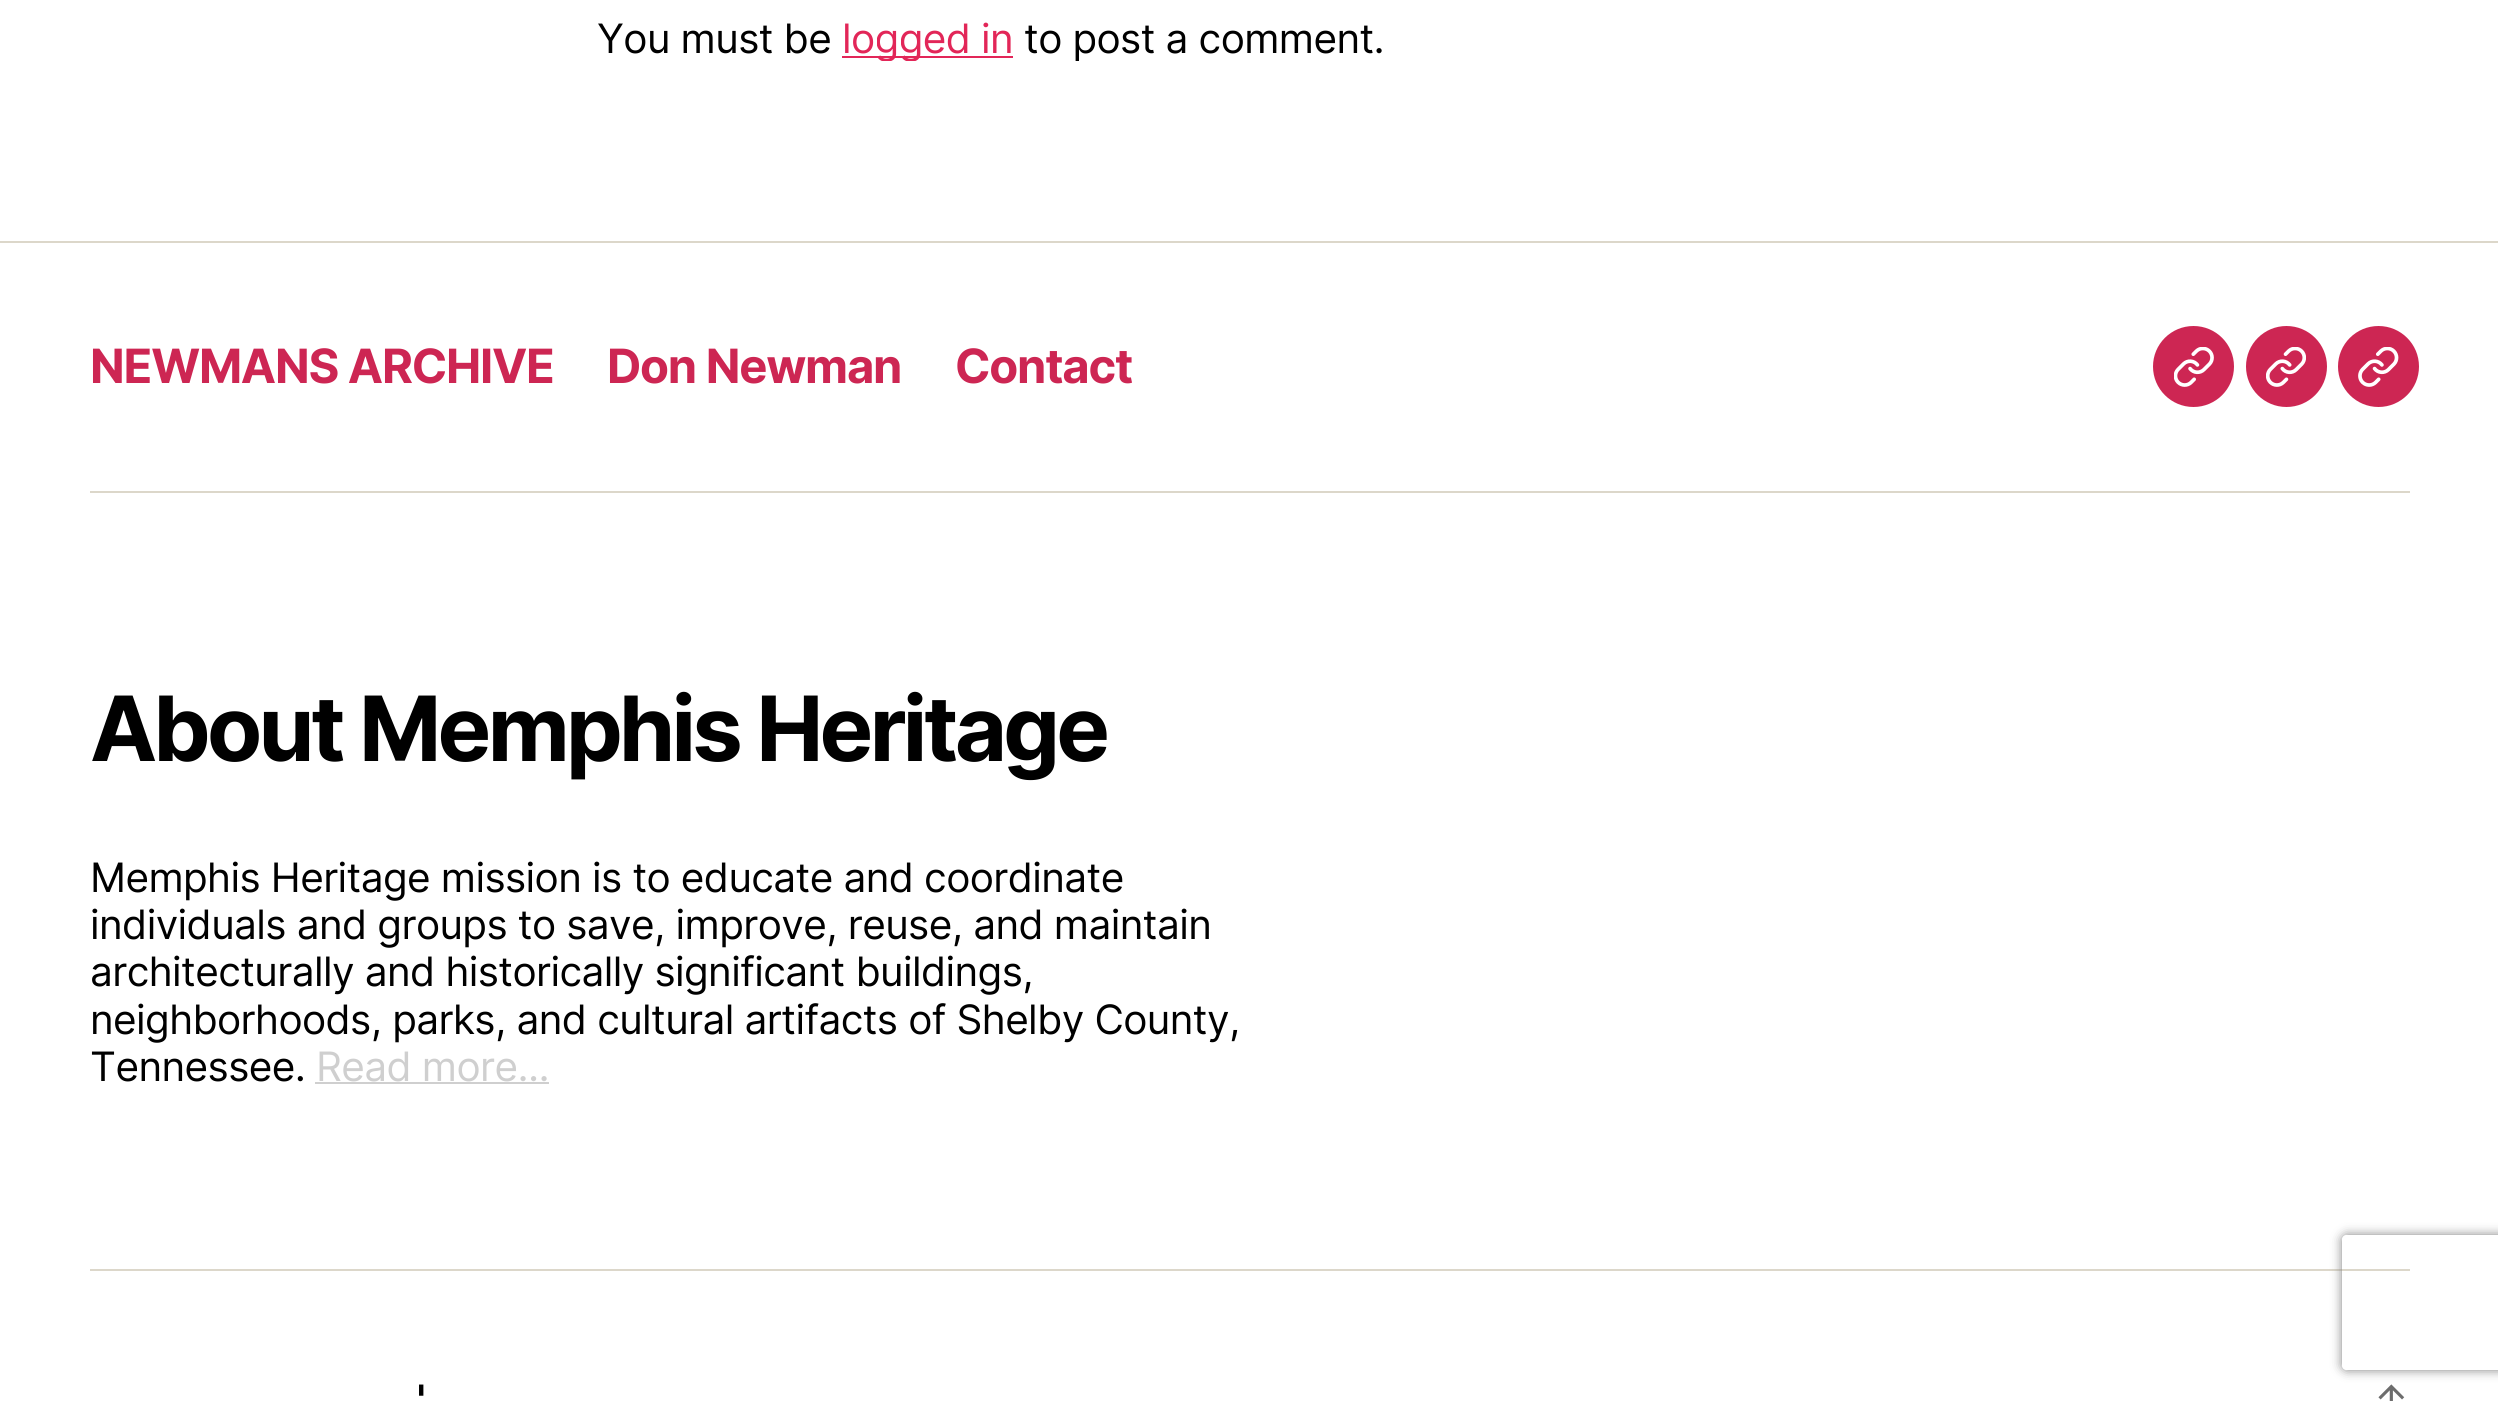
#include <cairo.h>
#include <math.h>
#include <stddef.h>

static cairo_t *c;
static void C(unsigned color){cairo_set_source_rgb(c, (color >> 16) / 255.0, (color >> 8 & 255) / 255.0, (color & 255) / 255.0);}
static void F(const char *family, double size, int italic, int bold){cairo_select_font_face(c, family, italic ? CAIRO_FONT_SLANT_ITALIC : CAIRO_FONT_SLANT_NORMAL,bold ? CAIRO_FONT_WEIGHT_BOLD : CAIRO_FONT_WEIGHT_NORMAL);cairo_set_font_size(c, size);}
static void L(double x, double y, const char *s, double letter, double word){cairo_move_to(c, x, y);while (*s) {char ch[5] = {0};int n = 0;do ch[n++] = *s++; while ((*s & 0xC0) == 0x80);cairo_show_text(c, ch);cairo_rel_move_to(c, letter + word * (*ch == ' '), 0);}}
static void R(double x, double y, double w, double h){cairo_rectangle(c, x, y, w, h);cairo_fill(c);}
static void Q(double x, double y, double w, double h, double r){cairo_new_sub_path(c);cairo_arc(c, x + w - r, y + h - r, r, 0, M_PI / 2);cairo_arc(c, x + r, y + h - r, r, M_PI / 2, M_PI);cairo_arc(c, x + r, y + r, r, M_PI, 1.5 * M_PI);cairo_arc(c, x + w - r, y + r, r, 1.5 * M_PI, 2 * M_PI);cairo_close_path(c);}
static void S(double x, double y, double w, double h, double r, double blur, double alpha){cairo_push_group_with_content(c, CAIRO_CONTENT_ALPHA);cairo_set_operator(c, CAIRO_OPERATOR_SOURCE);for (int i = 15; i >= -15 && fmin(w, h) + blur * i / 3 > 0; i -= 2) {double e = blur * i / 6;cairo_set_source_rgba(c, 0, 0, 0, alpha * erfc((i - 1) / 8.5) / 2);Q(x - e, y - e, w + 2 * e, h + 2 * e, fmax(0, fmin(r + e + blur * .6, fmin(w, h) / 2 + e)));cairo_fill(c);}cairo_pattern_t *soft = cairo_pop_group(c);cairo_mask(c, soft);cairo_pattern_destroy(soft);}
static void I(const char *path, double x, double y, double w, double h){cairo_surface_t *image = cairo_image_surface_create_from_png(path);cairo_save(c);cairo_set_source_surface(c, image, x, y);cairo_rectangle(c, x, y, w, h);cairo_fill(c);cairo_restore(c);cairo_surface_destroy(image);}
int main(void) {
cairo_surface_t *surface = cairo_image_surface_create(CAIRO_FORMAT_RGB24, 2498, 1401);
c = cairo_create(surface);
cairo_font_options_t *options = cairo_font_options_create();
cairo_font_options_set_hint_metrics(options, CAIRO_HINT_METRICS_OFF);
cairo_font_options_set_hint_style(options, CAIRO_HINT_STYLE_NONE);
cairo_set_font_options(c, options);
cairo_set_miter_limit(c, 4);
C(0xffffff);
cairo_paint(c);
F("Inter",40.5,0,0);
C(0x000000);
L(597,53,"You must be",-.6,0);
C(0xe22658);
R(842,56,171,2);
cairo_save(c);
cairo_rectangle(c,0,0,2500,61);
cairo_clip(c);
L(842,53,"logged in",-.6,0);
C(0x000000);
L(1024,53,"to post a comment.",-.6,0);
cairo_restore(c);
C(0xdcd7ca);
R(0,241,2498,2);
R(90,491,2320,2);
F("Inter",47.25,0,1);
C(0xcd2653);
L(90,383,"NEWMANS ARCHIVE",-1.25,0);
L(607,383,"Don Newman",-1.25,0);
L(955,383,"Contact",-1.25,0);
cairo_new_path(c);
cairo_arc(c,2193.5,366.5,40.5,0,2 * M_PI);
cairo_fill(c);
I("1.png",2174,347,40,40);
cairo_arc(c,2286.5,366.5,40.5,0,2 * M_PI);
cairo_fill(c);
I("2.png",2266,347,40,40);
cairo_arc(c,2378.5,366.5,40.5,0,2 * M_PI);
cairo_fill(c);
I("3.png",2358,347,41,40);
C(0xdcd7ca);
R(90,1269,2320,2);
F("Inter",90,0,1);
C(0x000000);
L(90,761,"About Memphis Heritage",-3.75,0);
F("Inter",40.5,0,0);
L(90,892,"Memphis Heritage mission is to educate and coordinate",-.6,0);
L(90,939,"individuals and groups to save, improve, reuse, and maintain",-.6,0);
L(90,986,"architecturally and historically significant buildings,",-.6,0);
L(90,1034,"neighborhoods, parks, and cultural artifacts of Shelby County,",-.6,0);
L(90,1081,"Tennessee.",-.6,0);
C(0xcfcfcf);
L(316,1081,"Read more...",-.6,0);
R(315,1082,234,2);
cairo_save(c);
cairo_set_fill_rule(c,CAIRO_FILL_RULE_EVEN_ODD);
cairo_new_path(c);
cairo_move_to(c,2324,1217);
cairo_line_to(c,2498,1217);
cairo_line_to(c,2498,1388);
cairo_line_to(c,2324,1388);
cairo_close_path(c);
cairo_move_to(c,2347,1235);
cairo_line_to(c,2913,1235);
cairo_curve_to(c,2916,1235,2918,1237,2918,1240);
cairo_line_to(c,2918,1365);
cairo_curve_to(c,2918,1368,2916,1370,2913,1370);
cairo_line_to(c,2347,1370);
cairo_curve_to(c,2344,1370,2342,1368,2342,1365);
cairo_line_to(c,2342,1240);
cairo_curve_to(c,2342,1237,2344,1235,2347,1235);
cairo_close_path(c);
cairo_clip(c);
C(0x808080);
S(2342,1235,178,135,5,5.5,1);
cairo_restore(c);
F("Inter",40.5,0,1);
C(0x000000);
L(417,1414,"'",-.6,0);
F("Inter",40.5,0,0);
C(0x6d6d6d);
L(2372,1414,"↑",-.6,0);
cairo_surface_write_to_png(surface, "o.png");
cairo_font_options_destroy(options);
cairo_destroy(c);
cairo_surface_destroy(surface);
return 0;
}
